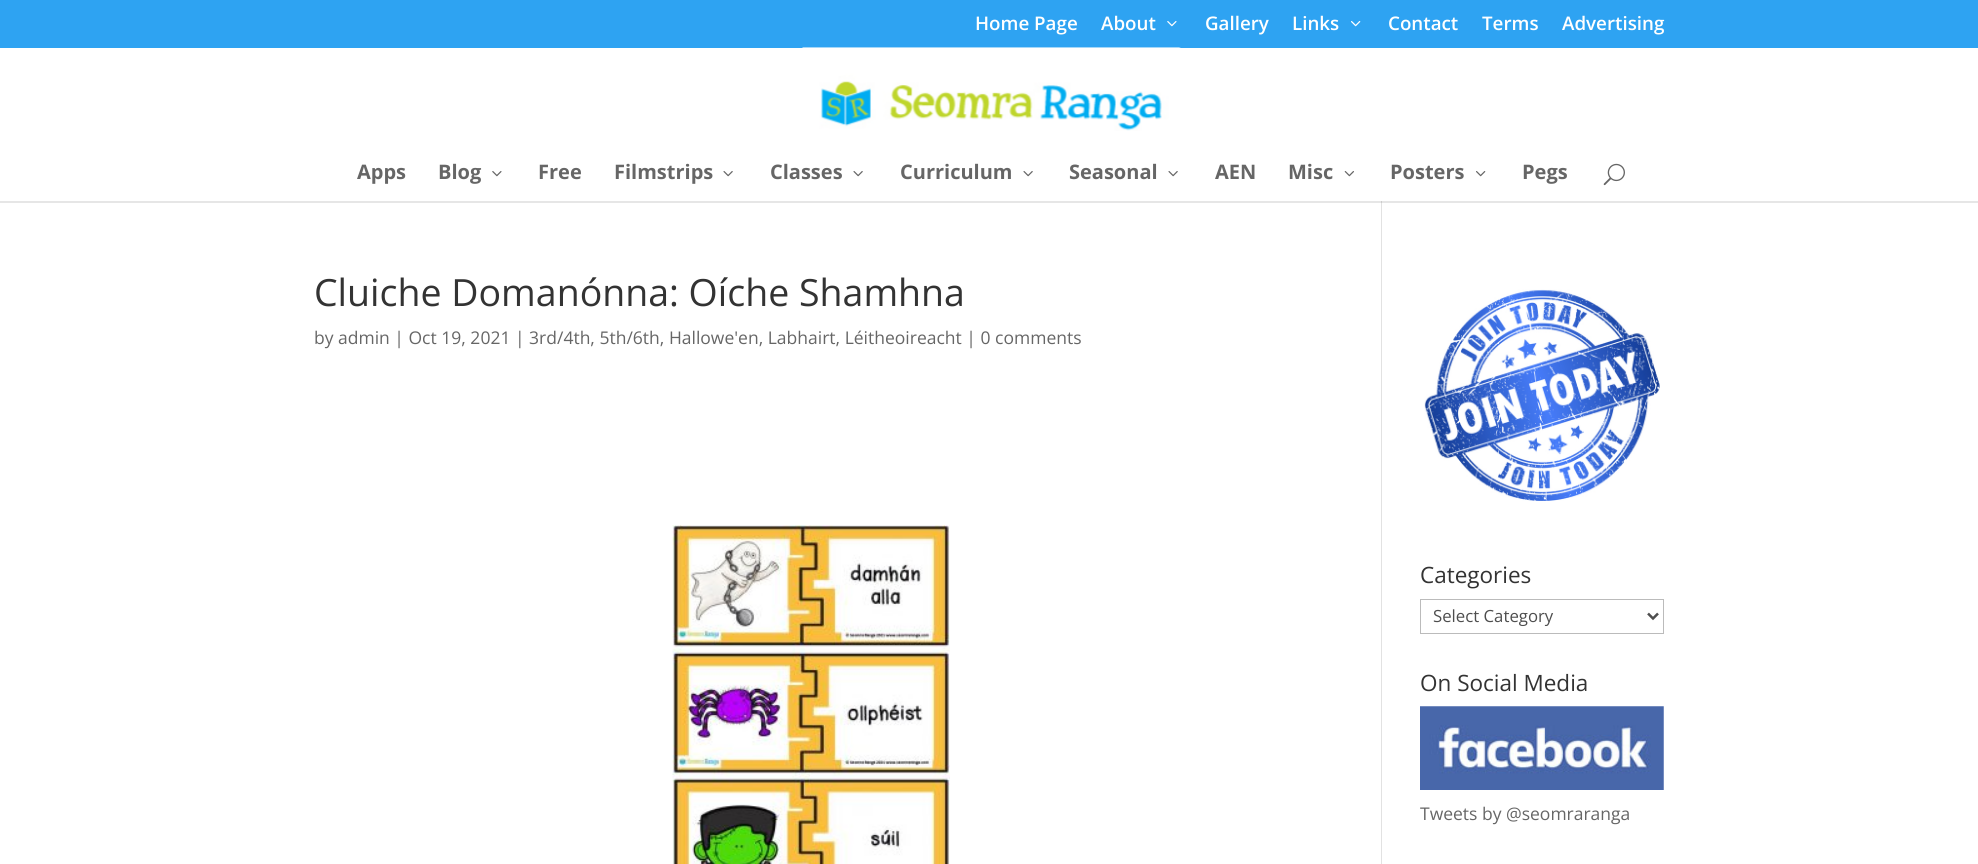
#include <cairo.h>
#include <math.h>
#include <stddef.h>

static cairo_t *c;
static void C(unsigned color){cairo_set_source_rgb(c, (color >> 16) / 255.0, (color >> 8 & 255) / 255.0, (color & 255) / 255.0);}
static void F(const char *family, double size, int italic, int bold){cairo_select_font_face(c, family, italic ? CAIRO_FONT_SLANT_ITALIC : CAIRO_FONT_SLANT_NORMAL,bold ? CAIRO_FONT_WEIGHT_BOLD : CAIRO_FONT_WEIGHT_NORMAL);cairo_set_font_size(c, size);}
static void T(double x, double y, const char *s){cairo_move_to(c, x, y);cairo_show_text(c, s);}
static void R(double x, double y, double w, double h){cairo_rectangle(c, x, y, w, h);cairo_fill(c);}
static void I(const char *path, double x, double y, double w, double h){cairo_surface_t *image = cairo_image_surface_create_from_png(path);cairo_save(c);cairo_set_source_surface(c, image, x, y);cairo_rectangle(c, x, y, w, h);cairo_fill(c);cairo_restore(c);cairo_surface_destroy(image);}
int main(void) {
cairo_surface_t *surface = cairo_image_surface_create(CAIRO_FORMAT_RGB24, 1978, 864);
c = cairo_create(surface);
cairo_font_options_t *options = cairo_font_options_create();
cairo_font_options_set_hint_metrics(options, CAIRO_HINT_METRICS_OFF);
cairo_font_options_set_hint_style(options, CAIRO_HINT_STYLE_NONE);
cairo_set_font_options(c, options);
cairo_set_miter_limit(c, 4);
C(0xffffff);
cairo_paint(c);
C(0x2ea3f2);
R(0,0,1978,48);
F("Open Sans SemiBold",18.75,0,0);
C(0xffffff);
T(975,30,"Home Page");
T(1101,30,"About");
I("1.png",1167,21,10,6);
T(1205,30,"Gallery");
T(1292,30,"Links");
I("2.png",1351,21,10,6);
T(1388,30,"Contact");
T(1482,30,"Terms");
T(1562,30,"Advertising");
C(0xe2e2e2);
R(1381,201,1,663);
cairo_set_source_rgba(c,0,0,0,0.1);
cairo_new_path(c);
cairo_move_to(c,0,201);
cairo_line_to(c,0,203);
cairo_line_to(c,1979,203);
cairo_line_to(c,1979,49);
cairo_line_to(c,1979,201);
cairo_close_path(c);
cairo_fill(c);
I("3.png",802,47,379,84);
F("Open Sans",20,0,1);
C(0x666666);
T(357,179,"Apps");
T(438,179,"Blog");
I("4.png",492,171,10,6);
T(538,179,"Free");
T(614,179,"Filmstrips");
I("5.png",723,171,10,6);
T(770,179,"Classes");
I("5.png",853,171,10,6);
T(900,179,"Curriculum");
I("5.png",1023,171,10,6);
T(1069,179,"Seasonal");
I("5.png",1168,171,10,6);
T(1215,179,"AEN");
T(1288,179,"Misc");
I("6.png",1344,171,10,6);
T(1390,179,"Posters");
I("7.png",1476,171,10,6);
T(1522,179,"Pegs");
I("8.png",1603,163,22,23);
F("Open Sans",37.5,0,0);
C(0x333333);
T(314,306,"Cluiche Domanónna: Oíche Shamhna");
F("Open Sans",17.5,0,0);
C(0x666666);
T(314,344,"by admin | Oct 19, 2021 | 3rd/4th, 5th/6th, Hallowe'en, Labhairt, Léitheoireacht | 0 comments");
I("9.png",672,525,278,339);
I("10.png",1424,289,236,212);
F("Open Sans",22.5,0,0);
C(0x333333);
T(1420,583,"Categories");
cairo_rectangle(c,1420.5,599.5,243,34);
C(0xbbbbbb);
cairo_set_line_width(c,1);
cairo_stroke(c);
cairo_new_path(c);
cairo_move_to(c,1648,613.5);
cairo_line_to(c,1653,618.5);
cairo_line_to(c,1658,613.5);
C(0x4e4e4e);
cairo_set_line_width(c,2.5);
cairo_stroke(c);
F("Open Sans",16.75,0,0);
T(1433,622,"Select Category");
F("Open Sans",22.5,0,0);
C(0x333333);
T(1420,691,"On Social Media");
I("11.png",1420,706,244,84);
F("Open Sans",17.5,0,0);
C(0x666666);
T(1420,820,"Tweets by @seomraranga");
cairo_surface_write_to_png(surface, "o.png");
cairo_font_options_destroy(options);
cairo_destroy(c);
cairo_surface_destroy(surface);
return 0;
}
